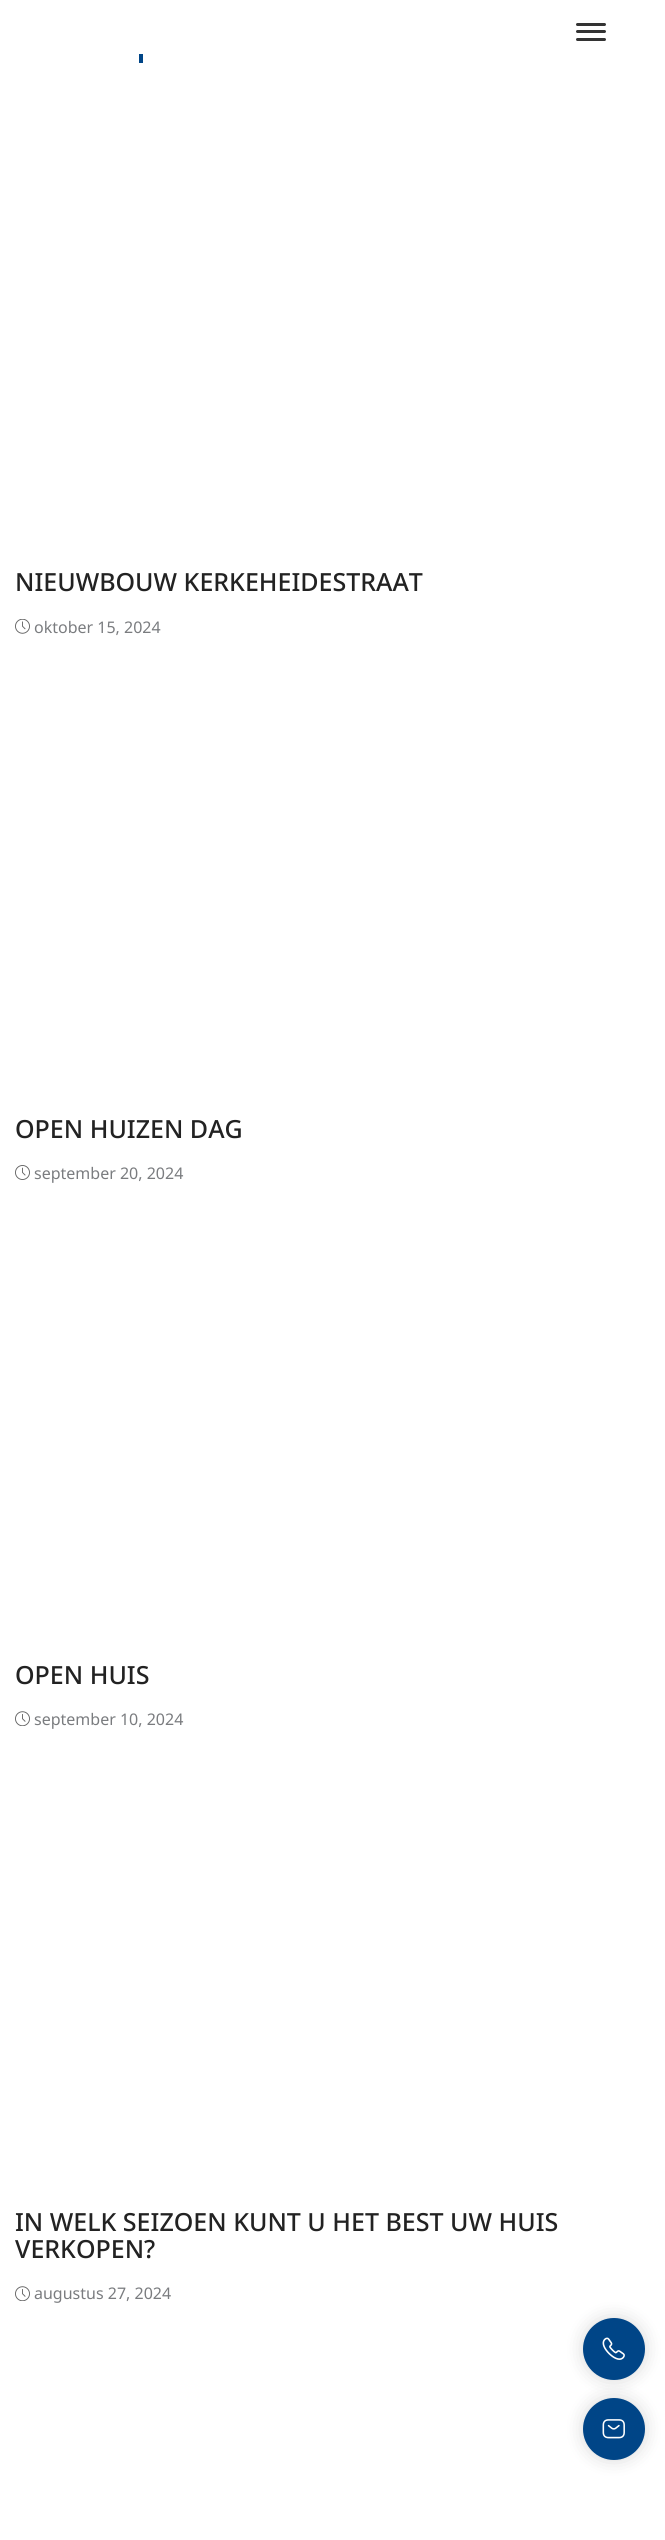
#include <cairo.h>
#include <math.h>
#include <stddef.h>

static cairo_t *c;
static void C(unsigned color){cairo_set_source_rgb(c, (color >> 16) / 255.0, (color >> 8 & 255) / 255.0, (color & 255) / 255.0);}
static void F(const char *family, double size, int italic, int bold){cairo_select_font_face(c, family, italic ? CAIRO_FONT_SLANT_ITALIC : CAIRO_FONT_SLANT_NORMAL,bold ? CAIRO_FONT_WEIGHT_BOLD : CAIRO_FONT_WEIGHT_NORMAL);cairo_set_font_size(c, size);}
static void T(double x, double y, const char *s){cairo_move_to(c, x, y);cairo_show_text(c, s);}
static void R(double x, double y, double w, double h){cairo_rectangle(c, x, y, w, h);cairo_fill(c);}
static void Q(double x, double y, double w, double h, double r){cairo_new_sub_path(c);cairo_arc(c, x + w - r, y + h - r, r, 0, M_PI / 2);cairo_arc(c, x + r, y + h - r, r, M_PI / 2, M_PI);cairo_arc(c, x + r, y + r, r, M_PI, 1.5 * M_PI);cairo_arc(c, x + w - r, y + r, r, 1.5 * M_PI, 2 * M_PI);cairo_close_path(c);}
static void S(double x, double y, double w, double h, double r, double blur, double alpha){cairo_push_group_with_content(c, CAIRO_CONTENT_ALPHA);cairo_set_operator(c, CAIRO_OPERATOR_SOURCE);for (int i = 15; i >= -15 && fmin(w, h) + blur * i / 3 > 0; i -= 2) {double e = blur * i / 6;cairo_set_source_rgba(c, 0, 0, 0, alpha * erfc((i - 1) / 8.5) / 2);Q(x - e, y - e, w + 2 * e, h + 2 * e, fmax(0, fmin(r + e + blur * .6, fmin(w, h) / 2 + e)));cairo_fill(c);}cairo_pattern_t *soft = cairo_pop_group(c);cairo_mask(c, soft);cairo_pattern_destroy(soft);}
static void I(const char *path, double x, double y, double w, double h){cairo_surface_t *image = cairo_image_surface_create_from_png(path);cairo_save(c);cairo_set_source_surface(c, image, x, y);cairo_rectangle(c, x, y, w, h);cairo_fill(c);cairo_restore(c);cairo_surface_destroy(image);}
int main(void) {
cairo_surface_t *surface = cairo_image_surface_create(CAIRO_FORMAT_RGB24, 665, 2540);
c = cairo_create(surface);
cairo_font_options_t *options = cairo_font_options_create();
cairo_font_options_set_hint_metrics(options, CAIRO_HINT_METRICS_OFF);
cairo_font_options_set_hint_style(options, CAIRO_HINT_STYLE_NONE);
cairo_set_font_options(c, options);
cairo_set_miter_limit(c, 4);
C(0xffffff);
cairo_paint(c);
C(0x333333);
Q(576,23,30,3,1.5);
cairo_fill(c);
Q(576,30,30,3,1.5);
cairo_fill(c);
Q(576,38,30,3,1.5);
cairo_fill(c);
C(0x004587);
R(139,54,4,9);
F("Noto Sans Medium",25,0,0);
C(0x222222);
T(15,591,"NIEUWBOUW KERKEHEIDESTRAAT");
I("1.png",15,619,15,15);
F("Noto Sans",16,0,0);
C(0x7a7c7f);
T(34,633,"oktober 15, 2024");
F("Noto Sans Medium",25,0,0);
C(0x222222);
T(15,1138,"OPEN HUIZEN DAG");
I("2.png",15,1165,15,15);
F("Noto Sans",16,0,0);
C(0x7a7c7f);
T(34,1179,"september 20, 2024");
F("Noto Sans Medium",25,0,0);
C(0x222222);
T(15,1684,"OPEN HUIS");
I("3.png",15,1711,15,15);
F("Noto Sans",16,0,0);
C(0x7a7c7f);
T(34,1725,"september 10, 2024");
F("Noto Sans Medium",25,0,0);
C(0x222222);
T(15,2231,"IN WELK SEIZOEN KUNT U HET BEST UW HUIS");
T(15,2258,"VERKOPEN?");
I("3.png",15,2286,15,15);
F("Noto Sans",16,0,0);
C(0x7a7c7f);
T(34,2299,"augustus 27, 2024");
C(0x000000);
S(583,2398,62,62,31,9,.15);
C(0x004587);
cairo_arc(c,614,2429,31,0,2 * M_PI);
cairo_fill(c);
C(0x000000);
S(583,2318,62,62,31,9,.15);
C(0x004587);
cairo_arc(c,614,2349,31,0,2 * M_PI);
cairo_fill(c);
I("4.png",602,2337,23,23);
I("5.png",602,2419,23,20);
cairo_surface_write_to_png(surface, "o.png");
cairo_font_options_destroy(options);
cairo_destroy(c);
cairo_surface_destroy(surface);
return 0;
}
